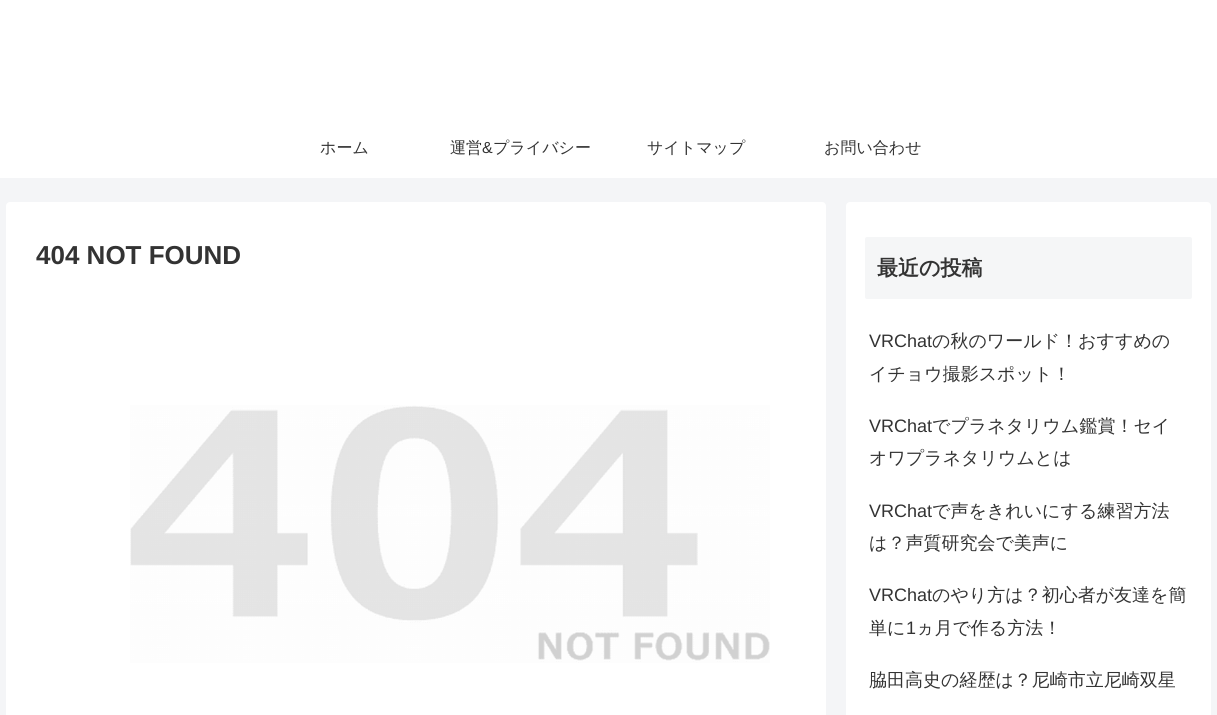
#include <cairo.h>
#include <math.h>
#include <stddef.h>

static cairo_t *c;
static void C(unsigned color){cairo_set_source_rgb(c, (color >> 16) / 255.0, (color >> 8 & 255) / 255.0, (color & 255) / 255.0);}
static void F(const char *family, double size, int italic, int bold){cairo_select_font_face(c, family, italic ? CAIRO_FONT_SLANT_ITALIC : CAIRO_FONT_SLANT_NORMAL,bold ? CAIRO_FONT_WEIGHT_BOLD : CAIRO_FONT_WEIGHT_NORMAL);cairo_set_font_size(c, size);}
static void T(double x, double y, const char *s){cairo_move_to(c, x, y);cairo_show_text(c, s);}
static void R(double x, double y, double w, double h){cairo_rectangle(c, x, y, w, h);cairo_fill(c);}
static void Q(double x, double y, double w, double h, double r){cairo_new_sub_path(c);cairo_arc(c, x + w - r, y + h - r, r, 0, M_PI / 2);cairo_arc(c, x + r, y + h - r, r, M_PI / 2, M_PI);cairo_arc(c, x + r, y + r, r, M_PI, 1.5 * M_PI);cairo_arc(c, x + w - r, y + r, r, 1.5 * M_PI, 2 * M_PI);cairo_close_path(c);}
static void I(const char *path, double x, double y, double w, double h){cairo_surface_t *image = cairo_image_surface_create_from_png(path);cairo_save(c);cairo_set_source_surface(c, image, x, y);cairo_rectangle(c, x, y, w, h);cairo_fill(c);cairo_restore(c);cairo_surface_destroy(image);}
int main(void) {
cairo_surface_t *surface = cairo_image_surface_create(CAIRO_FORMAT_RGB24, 1217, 715);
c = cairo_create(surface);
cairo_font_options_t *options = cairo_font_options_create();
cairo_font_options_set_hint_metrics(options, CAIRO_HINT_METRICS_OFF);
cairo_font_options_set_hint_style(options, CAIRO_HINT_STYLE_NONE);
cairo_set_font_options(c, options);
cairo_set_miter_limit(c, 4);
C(0xf4f5f7);
cairo_paint(c);
C(0xffffff);
R(0,0,1217,178);
F("WenQuanYi Zen Hei Medium",16,0,0);
C(0x333333);
T(320,153,"ホーム");
T(450,153,"運営");
F("Liberation Sans",16,0,0);
T(482,153,"&");
F("WenQuanYi Zen Hei Medium",16,0,0);
T(493,153,"プライバシー");
T(647,153,"サイトマップ");
T(824,153,"お問い合わせ");
C(0xffffff);
Q(6,202,820,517,4);
cairo_fill(c);
F("Liberation Sans",26,0,1);
C(0x333333);
T(36,264,"404 NOT FOUND");
I("1.png",130,405,640,258);
C(0xffffff);
Q(846,202,365,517,4);
cairo_fill(c);
C(0xf5f6f7);
Q(865,237,327,62,2);
cairo_fill(c);
F("WenQuanYi Zen Hei",21,0,1);
C(0x333333);
T(877,275,"最近の投稿");
F("Liberation Sans",18,0,0);
T(869,347,"VRChat");
F("WenQuanYi Zen Hei Medium",18,0,0);
T(932,347,"の秋のワールド！おすすめの");
T(869,380,"イチョウ撮影スポット！");
F("Liberation Sans",18,0,0);
T(869,432,"VRChat");
F("WenQuanYi Zen Hei Medium",18,0,0);
T(932,432,"でプラネタリウム鑑賞！セイ");
T(869,464,"オワプラネタリウムとは");
F("Liberation Sans",18,0,0);
T(869,517,"VRChat");
F("WenQuanYi Zen Hei Medium",18,0,0);
T(932,517,"で声をきれいにする練習方法");
T(869,549,"は？声質研究会で美声に");
F("Liberation Sans",18,0,0);
T(869,601,"VRChat");
F("WenQuanYi Zen Hei Medium",18,0,0);
T(932,601,"のやり方は？初心者が友達を簡");
T(869,634,"単に");
F("Liberation Sans",18,0,0);
T(906,634,"1");
F("WenQuanYi Zen Hei Medium",18,0,0);
T(916,634,"ヵ月で作る方法！");
T(869,686,"脇田高史の経歴は？尼崎市立尼崎双星");
cairo_surface_write_to_png(surface, "o.png");
cairo_font_options_destroy(options);
cairo_destroy(c);
cairo_surface_destroy(surface);
return 0;
}
